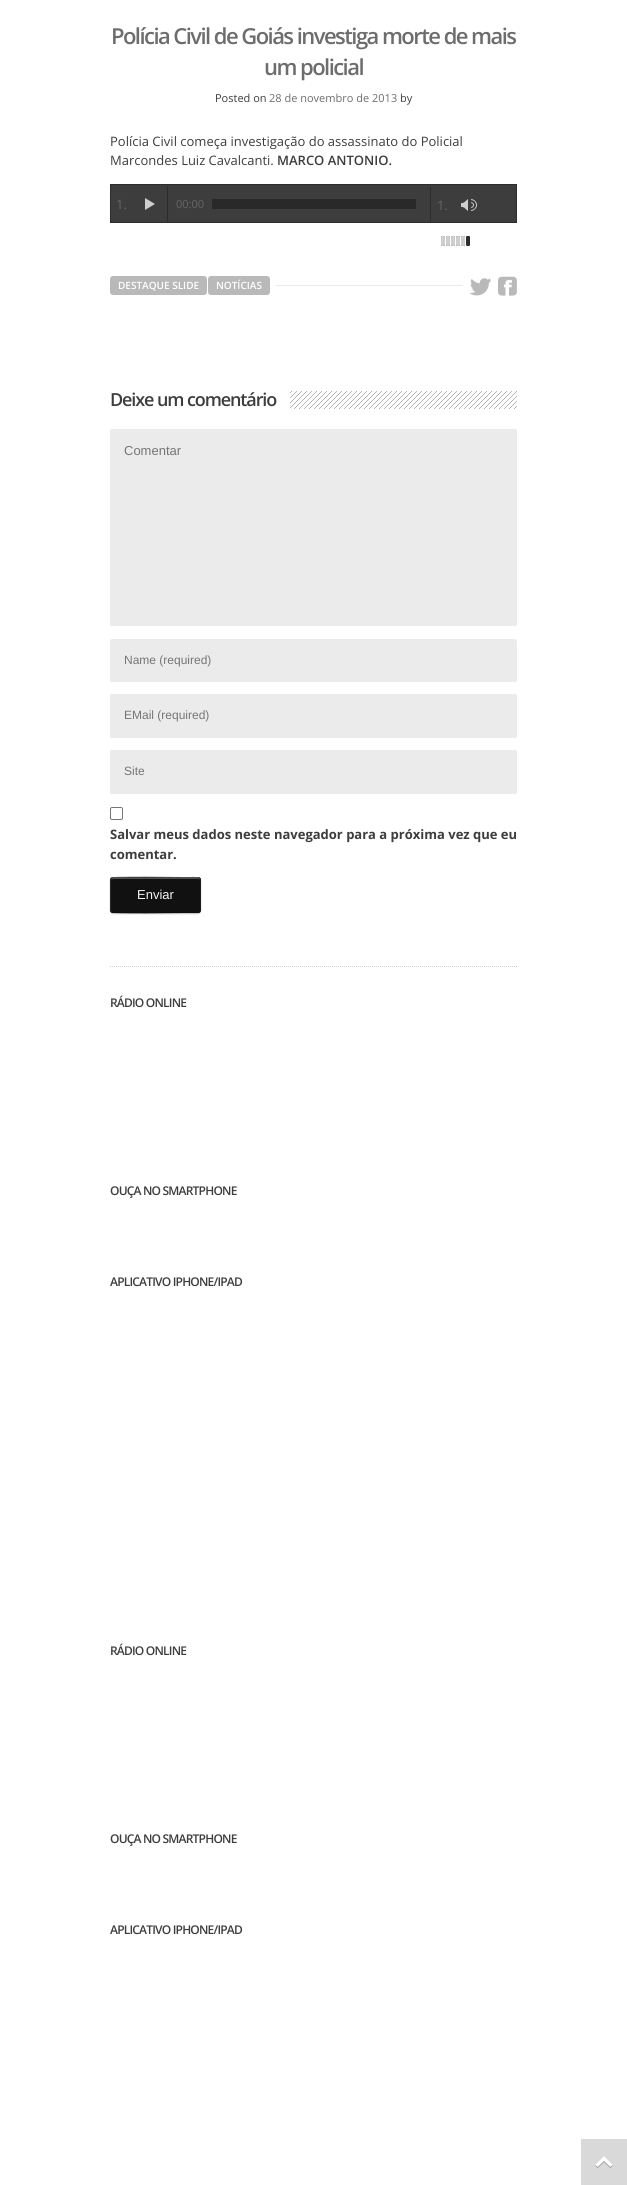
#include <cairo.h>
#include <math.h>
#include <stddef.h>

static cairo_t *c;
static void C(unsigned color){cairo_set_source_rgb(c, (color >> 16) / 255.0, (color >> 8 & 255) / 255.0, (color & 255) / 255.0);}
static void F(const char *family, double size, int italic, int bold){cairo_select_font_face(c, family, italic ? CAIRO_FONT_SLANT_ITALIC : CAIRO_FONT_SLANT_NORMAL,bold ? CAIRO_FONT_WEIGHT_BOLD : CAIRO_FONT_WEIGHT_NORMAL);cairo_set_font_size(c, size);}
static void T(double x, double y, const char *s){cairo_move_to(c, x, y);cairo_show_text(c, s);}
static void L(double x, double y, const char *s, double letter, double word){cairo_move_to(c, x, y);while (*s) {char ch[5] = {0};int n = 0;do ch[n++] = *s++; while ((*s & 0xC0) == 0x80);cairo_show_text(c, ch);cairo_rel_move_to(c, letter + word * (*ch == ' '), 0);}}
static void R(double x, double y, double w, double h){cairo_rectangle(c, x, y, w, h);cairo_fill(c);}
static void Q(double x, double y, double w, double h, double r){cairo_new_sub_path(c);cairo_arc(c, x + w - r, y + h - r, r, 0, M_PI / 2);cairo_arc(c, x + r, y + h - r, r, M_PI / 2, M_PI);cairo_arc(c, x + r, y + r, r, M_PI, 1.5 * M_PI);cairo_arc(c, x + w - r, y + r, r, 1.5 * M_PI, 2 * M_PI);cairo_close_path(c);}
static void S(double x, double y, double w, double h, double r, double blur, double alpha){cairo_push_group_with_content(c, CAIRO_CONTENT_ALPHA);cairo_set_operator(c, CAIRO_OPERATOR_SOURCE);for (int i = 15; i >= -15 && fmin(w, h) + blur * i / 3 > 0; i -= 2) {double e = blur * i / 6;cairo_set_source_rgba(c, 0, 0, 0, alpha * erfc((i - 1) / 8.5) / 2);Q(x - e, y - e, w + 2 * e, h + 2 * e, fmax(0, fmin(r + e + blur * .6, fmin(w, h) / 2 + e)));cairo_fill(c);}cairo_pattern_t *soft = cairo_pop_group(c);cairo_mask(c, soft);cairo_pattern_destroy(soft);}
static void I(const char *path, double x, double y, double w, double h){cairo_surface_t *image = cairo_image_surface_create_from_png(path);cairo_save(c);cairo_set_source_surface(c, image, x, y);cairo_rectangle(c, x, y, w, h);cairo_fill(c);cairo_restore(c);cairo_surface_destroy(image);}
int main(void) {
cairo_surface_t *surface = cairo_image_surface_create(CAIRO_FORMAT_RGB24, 627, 2185);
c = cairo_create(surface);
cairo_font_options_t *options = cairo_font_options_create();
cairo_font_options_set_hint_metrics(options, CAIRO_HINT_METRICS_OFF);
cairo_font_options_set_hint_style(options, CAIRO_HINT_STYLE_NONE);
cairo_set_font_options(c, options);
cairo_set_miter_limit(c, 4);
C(0xffffff);
cairo_paint(c);
F("Open Sans SemiBold",22,0,0);
C(0x6d6d6d);
L(111,44,"Polícia Civil de Goiás investiga morte de mais",-1.55,0);
L(264,75,"um policial",-1.55,0);
F("Open Sans",11,0,0);
C(0x3d3d3d);
T(215,102,"Posted on");
C(0x6d6d6d);
T(269,102,"28 de novembro de 2013");
C(0x3d3d3d);
T(400,102,"by");
F("Open Sans",13,0,0);
T(110,146,"Polícia Civil começa investigação do assassinato do Policial");
T(110,165,"Marcondes Luiz Cavalcanti.");
F("Open Sans SemiBold",13,0,0);
T(277,165,"MARCO ANTONIO.");
cairo_rectangle(c,110.5,184.5,406,38);
C(0x2c2c2c);
cairo_set_line_width(c,1);
cairo_stroke(c);
C(0x3d3d3d);
R(111,185,405,37);
C(0x2c2c2c);
R(167,186,1,36);
F("Open Sans",13,0,0);
C(0x666666);
T(116,209,"1.");
I("1.png",145,198,10,12);
F("Open Sans",11,0,0);
T(176,208,"00:00");
C(0x292929);
R(212,199,204,10);
C(0x2c2c2c);
R(430,187,1,36);
F("Open Sans",13,0,0);
C(0x666666);
T(437,210,"1.");
I("2.png",461,199,16,12);
I("3.png",441,236,29,10);
I("4.png",441,236,24,10);
C(0xe9e9e9);
R(276,285,187,1);
C(0xb9b9b9);
Q(110,276,97,19,3);
cairo_fill(c);
F("Open Sans SemiBold",10,0,0);
C(0xffffff);
T(118,289,"DESTAQUE SLIDE");
C(0xb9b9b9);
Q(208,276,62,19,3);
cairo_fill(c);
C(0xffffff);
T(216,289,"NOTÍCIAS");
I("5.png",470,278,21,18);
I("6.png",498,276,19,20);
I("7.png",290,391,227,18);
F("Open Sans SemiBold",18,0,0);
C(0x3d3d3d);
L(110,406,"Deixe um comentário",-1.1,0);
C(0xebebeb);
Q(110,429,407,197,2);
cairo_fill(c);
F("Liberation Sans",13,0,0);
C(0x757575);
T(124,455,"Comentar");
C(0xebebeb);
Q(110,639,407,43,2);
cairo_fill(c);
F("Liberation Sans",12,0,0);
C(0x757575);
T(124,664,"Name (required)");
C(0xebebeb);
Q(110,694,407,44,2);
cairo_fill(c);
C(0x757575);
T(124,719,"EMail (required)");
C(0xebebeb);
Q(110,750,407,44,2);
cairo_fill(c);
C(0x757575);
T(124,775,"Site");
Q(110.5,807.5,12,12,1.5);
C(0x767676);
cairo_stroke(c);
F("Open Sans",13,0,1);
C(0x3d3d3d);
T(110,839,"Salvar meus dados neste navegador para a próxima vez que eu");
T(110,859,"comentar.");
C(0x000000);
S(110,878,91,36,3,.5,.25);
C(0x111111);
Q(110,877,91,36,3);
cairo_fill(c);
C(0x4d4d4d);
cairo_new_path(c);
cairo_move_to(c,113,879);
cairo_line_to(c,198,879);
cairo_curve_to(c,199,879,200,880,200,881);
cairo_curve_to(c,200,874,186,878,184,878);
cairo_line_to(c,127,878);
cairo_curve_to(c,125,878,111,874,111,881);
cairo_curve_to(c,111,880,112,879,113,879);
cairo_close_path(c);
cairo_fill(c);
cairo_new_path(c);
cairo_move_to(c,111,878);
cairo_line_to(c,111.5,878);
cairo_curve_to(c,113.5,876.5,176.5,877.5,184,877.5);
cairo_line_to(c,198,877.5);
cairo_line_to(c,200,878);
C(0x535353);
cairo_stroke(c);
cairo_new_path(c);
cairo_move_to(c,200,878);
cairo_curve_to(c,200,878.5,200.5,879.5,200.5,880);
cairo_line_to(c,200.5,910);
cairo_curve_to(c,200.5,910.5,200,911.5,200,912);
C(0x1e1e1e);
cairo_stroke(c);
cairo_new_path(c);
cairo_move_to(c,200,912);
cairo_line_to(c,198,912.5);
cairo_line_to(c,184,912.5);
cairo_curve_to(c,176.5,912.5,113.5,913.5,111.5,912);
cairo_line_to(c,111,912);
C(0x0d0d0d);
cairo_stroke(c);
cairo_new_path(c);
cairo_move_to(c,111,912);
cairo_curve_to(c,111,911.5,110.5,910.5,110.5,910);
cairo_line_to(c,110.5,880);
cairo_curve_to(c,110.5,879.5,111,878.5,111,878);
C(0x2d2d2d);
cairo_stroke(c);
F("Liberation Sans",13,0,0);
C(0xf5f5f5);
T(137,899,"Enviar");
cairo_new_path(c);
cairo_move_to(c,110,966.5);
cairo_line_to(c,517,966.5);
C(0xcfcfcf);
cairo_set_dash(c,(double[]){1,1},2,0);
cairo_stroke(c);
F("Open Sans SemiBold",12,0,0);
C(0x3d3d3d);
L(110,1007,"RÁDIO ONLINE",-.8,0);
L(110,1195,"OUÇA NO SMARTPHONE",-.8,0);
L(110,1286,"APLICATIVO IPHONE/IPAD",-.8,0);
L(110,1655,"RÁDIO ONLINE",-.8,0);
L(110,1843,"OUÇA NO SMARTPHONE",-.8,0);
L(110,1934,"APLICATIVO IPHONE/IPAD",-.8,0);
I("8.png",581,2139,46,46);
cairo_surface_write_to_png(surface, "o.png");
cairo_font_options_destroy(options);
cairo_destroy(c);
cairo_surface_destroy(surface);
return 0;
}
